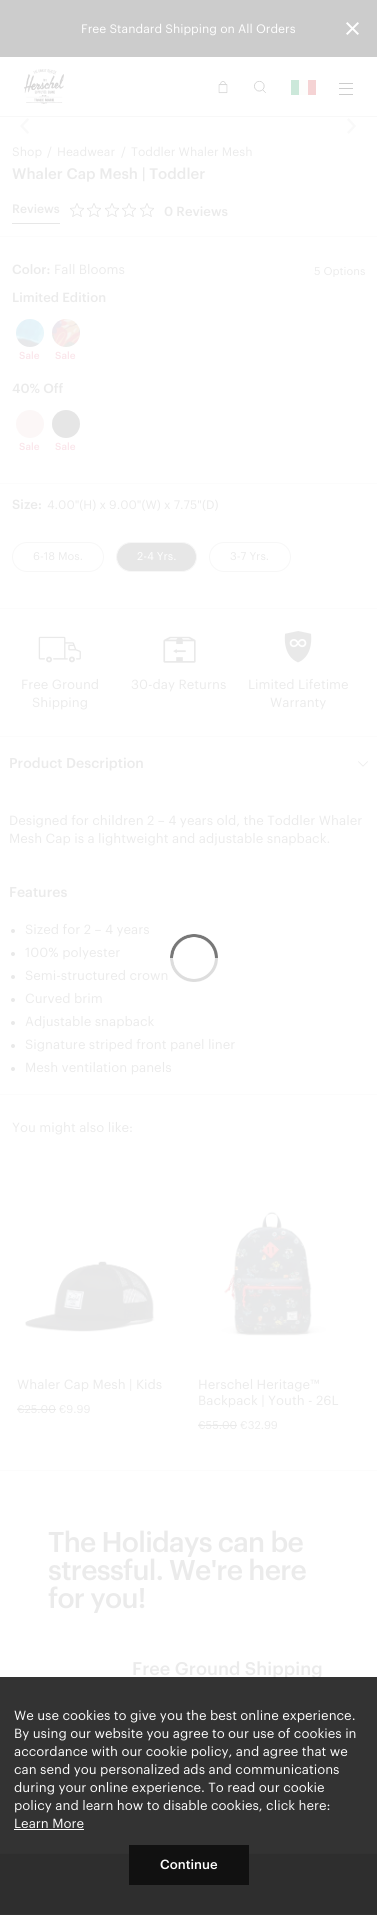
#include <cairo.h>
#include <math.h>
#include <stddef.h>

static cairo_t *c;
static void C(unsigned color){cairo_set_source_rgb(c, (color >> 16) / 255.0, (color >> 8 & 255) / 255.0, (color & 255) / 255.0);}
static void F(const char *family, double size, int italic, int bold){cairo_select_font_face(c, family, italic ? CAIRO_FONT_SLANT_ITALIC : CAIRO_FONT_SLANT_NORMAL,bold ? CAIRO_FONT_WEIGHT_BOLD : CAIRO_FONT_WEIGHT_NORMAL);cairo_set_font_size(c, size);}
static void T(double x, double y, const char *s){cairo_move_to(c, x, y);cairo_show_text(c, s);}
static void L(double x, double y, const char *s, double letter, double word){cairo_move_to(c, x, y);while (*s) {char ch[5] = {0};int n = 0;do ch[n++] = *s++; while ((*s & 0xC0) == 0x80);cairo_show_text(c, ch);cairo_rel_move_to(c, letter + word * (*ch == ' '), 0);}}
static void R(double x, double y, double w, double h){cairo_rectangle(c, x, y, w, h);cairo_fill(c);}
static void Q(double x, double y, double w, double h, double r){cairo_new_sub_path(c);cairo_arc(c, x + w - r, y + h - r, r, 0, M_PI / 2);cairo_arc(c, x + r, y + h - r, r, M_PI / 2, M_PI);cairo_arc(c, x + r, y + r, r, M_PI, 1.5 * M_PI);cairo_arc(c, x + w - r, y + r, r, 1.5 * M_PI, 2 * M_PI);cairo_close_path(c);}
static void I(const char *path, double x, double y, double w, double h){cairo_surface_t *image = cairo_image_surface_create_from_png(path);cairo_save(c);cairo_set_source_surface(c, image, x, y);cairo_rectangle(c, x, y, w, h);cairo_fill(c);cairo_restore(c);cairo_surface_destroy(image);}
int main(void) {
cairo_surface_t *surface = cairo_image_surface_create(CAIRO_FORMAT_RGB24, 377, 1915);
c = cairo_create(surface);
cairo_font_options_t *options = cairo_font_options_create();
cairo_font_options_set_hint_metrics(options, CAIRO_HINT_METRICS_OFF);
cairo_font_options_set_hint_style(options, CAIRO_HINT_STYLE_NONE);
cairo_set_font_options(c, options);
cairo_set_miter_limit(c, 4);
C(0xffffff);
cairo_paint(c);
C(0xcccccc);
R(0,0,377,57);
F("Graphik",12,0,0);
C(0xffffff);
T(81,33,"Free Standard Shipping on All Orders");
I("1.png",346,22,13,13);
C(0xf8f8f8);
R(0,116,377,1);
I("2.png",24,69,40,35);
I("3.png",218,81,10,13);
I("4.png",254,80,12,13);
C(0xcce8da);
R(291,80,8,15);
C(0xfdfdfc);
R(299,80,9,15);
C(0xf5d3d4);
R(308,80,8,15);
C(0xcccccc);
R(339,83,14,1);
R(339,88,14,1);
R(339,94,14,1);
I("5.png",20,118,9,16);
I("6.png",347,118,9,16);
C(0xebebeb);
T(12,156,"Shop");
T(47,156,"/");
T(57,156,"Headwear");
T(121,156,"/");
T(131,156,"Toddler Whaler Mesh");
F("Graphik Medium",15,0,0);
T(12,179,"Whaler Cap Mesh | Toddler");
C(0xe7e7e7);
R(12,223,48,1);
F("Graphik Medium",12,0,0);
C(0xebebeb);
T(12,213,"Reviews");
I("7.png",70,203,14,14);
I("7.png",87,203,14,14);
I("7.png",105,203,14,14);
I("7.png",122,203,14,14);
I("7.png",140,203,14,14);
F("Graphik Medium",13,0,0);
T(164,216,"0 Reviews");
C(0xfcfcfc);
R(0,236,377,1);
C(0xebebeb);
T(12,274,"Color:");
F("Graphik",13,0,0);
T(54,274,"Fall Blooms");
F("Graphik",11,0,0);
T(314,275,"5 Options");
F("Graphik Medium",13,0,0);
T(12,302,"Limited Edition");
I("8.png",16,319,28,28);
F("Graphik Medium",10,0,0);
C(0xfae6eb);
T(19,359,"Sale");
I("9.png",52,319,28,28);
T(55,359,"Sale");
F("Graphik Medium",13,0,0);
C(0xebebeb);
T(12,393,"40% Off");
I("10.png",16,410,28,28);
F("Graphik Medium",10,0,0);
C(0xfae6eb);
T(19,450,"Sale");
I("11.png",52,410,28,28);
T(55,450,"Sale");
C(0xfcfcfc);
R(0,483,377,1);
F("Graphik Medium",13,0,0);
C(0xebebeb);
T(12,509,"Size:");
F("Graphik",12,0,0);
T(47,509,"4.00\"(H) x 9.00\"(W) x 7.75\"(D)");
Q(12.5,542.5,91,29,14.5);
C(0xf7f7f7);
cairo_set_line_width(c,1);
cairo_stroke(c);
F("Graphik",11,0,0);
C(0xebebeb);
T(33,560,"6-18 Mos.");
C(0xe7e7e7);
Q(116.5,542.5,80,29,14.5);
cairo_fill_preserve(c);
C(0xf7f7f7);
cairo_stroke(c);
C(0xffffff);
T(137,560,"2-4 Yrs.");
Q(209.5,542.5,81,29,14.5);
C(0xf7f7f7);
cairo_stroke(c);
C(0xebebeb);
T(230,560,"3-7 Yrs.");
C(0xfcfcfc);
R(0,608,377,1);
I("12.png",38,636,43,27);
F("Graphik",13,0,0);
C(0xebebeb);
T(21,689,"Free Ground");
T(32,707,"Shipping");
I("13.png",163,636,33,27);
T(131,689,"30-day Returns");
I("14.png",284,631,28,32);
T(248,689,"Limited Lifetime");
T(270,707,"Warranty");
C(0xfcfcfc);
R(0,736,377,1);
R(0,1094,377,1);
F("Graphik Medium",14,0,0);
C(0xebebeb);
T(9,768,"Product Description");
I("15.png",358,761,10,6);
F("Graphik",13,0,0);
T(9,825,"Designed for children 2 – 4 years old, the Toddler Whaler");
T(9,843,"Mesh Cap is a lightweight and adjustable snapback.");
F("Graphik Medium",14,0,0);
T(9,897,"Features");
C(0xe9e9e9);
cairo_new_path(c);
cairo_arc(c,13,931,2,0,2 * M_PI);
cairo_fill(c);
F("Graphik",13,0,0);
C(0xebebeb);
T(25,934,"Sized for 2 – 4 years");
C(0xe9e9e9);
cairo_new_path(c);
cairo_arc(c,13,954,2,0,2 * M_PI);
cairo_fill(c);
C(0xebebeb);
T(25,957,"100% polyester");
C(0xe9e9e9);
cairo_new_path(c);
cairo_arc(c,13,977,2,0,2 * M_PI);
cairo_fill(c);
C(0xebebeb);
T(25,980,"Semi-structured crown");
C(0xe9e9e9);
cairo_new_path(c);
cairo_arc(c,13,1000,2,0,2 * M_PI);
cairo_fill(c);
C(0xebebeb);
T(25,1003,"Curved brim");
C(0xe9e9e9);
cairo_new_path(c);
cairo_arc(c,13,1023,2,0,2 * M_PI);
cairo_fill(c);
C(0xebebeb);
T(25,1026,"Adjustable snapback");
C(0xe9e9e9);
cairo_new_path(c);
cairo_arc(c,13,1046,2,0,2 * M_PI);
cairo_fill(c);
C(0xebebeb);
T(25,1049,"Signature striped front panel liner");
C(0xe9e9e9);
cairo_new_path(c);
cairo_arc(c,13,1069,2,0,2 * M_PI);
cairo_fill(c);
C(0xebebeb);
T(25,1072,"Mesh ventilation panels");
C(0xf8f8f8);
R(0,1853,377,1);
R(0,1914,377,1);
C(0xe4e4e4);
R(0,1854,377,60);
C(0xebebeb);
T(12,1132,"You might also like:");
I("16.png",12,1173,157,197);
T(17,1389,"Whaler Cap Mesh | Kids");
F("Graphik",11,0,0);
T(17,1413,"€25.00 €9.99");
C(0xe9e9e9);
R(17,1409,39,1);
I("17.png",193,1173,157,197);
F("Graphik",13,0,0);
C(0xebebeb);
T(198,1389,"Herschel Heritage™");
T(198,1405,"Backpack | Youth - 26L");
F("Graphik",11,0,0);
T(198,1429,"€55.00 €32.99");
C(0xe9e9e9);
R(198,1425,39,1);
C(0xfcfcfc);
R(0,1470,377,1);
F("Graphik Medium",28,0,0);
C(0xebebeb);
L(48,1552,"The Holidays can be",-.8,0);
L(48,1580,"stressful. We're here",-.8,0);
L(48,1608,"for you!",-.8,0);
F("Graphik Medium",18,0,0);
T(132,1675,"Free Ground Shipping");
C(0xe9e9e9);
R(132,1737,65,1);
cairo_set_source_rgba(c,0,0,0,0.8);
R(0,1677,377,238);
F("Graphik",13,0,0);
C(0xffffff);
T(14,1720,"We use cookies to give you the best online experience.");
T(14,1738,"By using our website you agree to our use of cookies in");
T(14,1756,"accordance with our cookie policy, and agree that we");
T(14,1774,"can send you personalized ads and communications");
T(14,1792,"during your online experience. To read our cookie");
T(14,1810,"policy and learn how to disable cookies, click here:");
T(14,1828,"Learn More");
R(14,1829,70,1);
C(0x111111);
R(129,1845,120,40);
F("Graphik Medium",13,0,0);
C(0xffffff);
T(160,1869,"Continue");
I("18.png",170,934,48,48);
cairo_surface_write_to_png(surface, "o.png");
cairo_font_options_destroy(options);
cairo_destroy(c);
cairo_surface_destroy(surface);
return 0;
}
